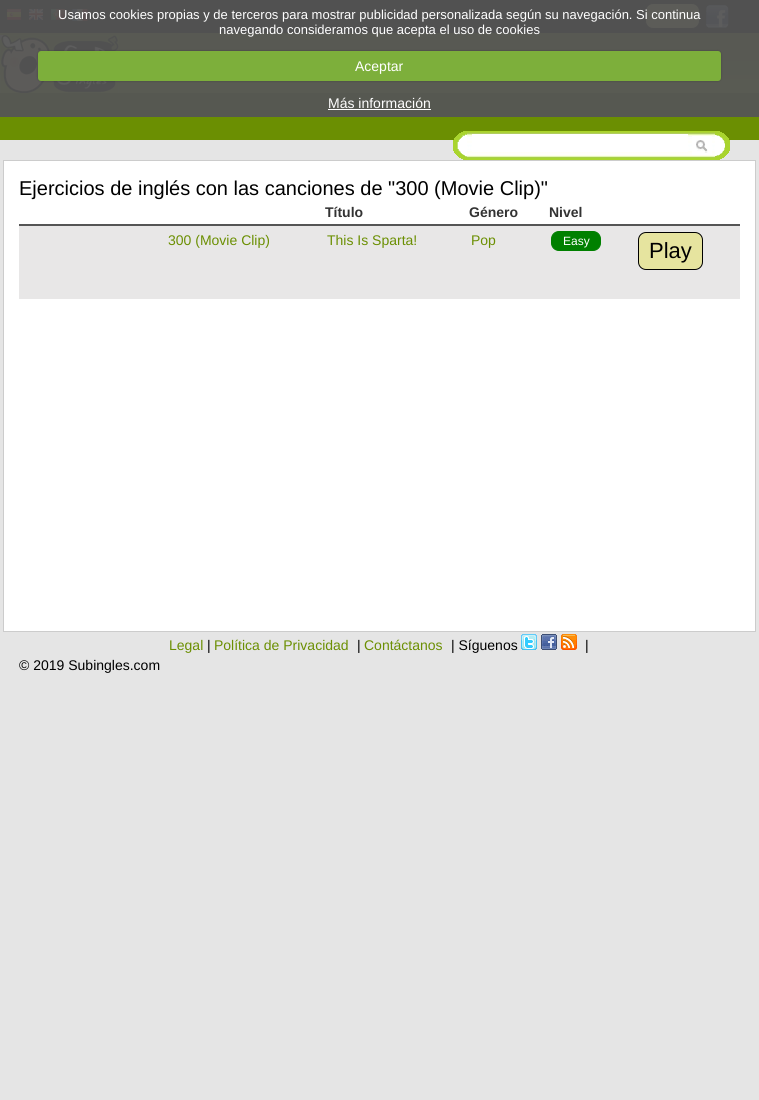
#include <cairo.h>
#include <math.h>
#include <stddef.h>

static cairo_t *c;
static void C(unsigned color){cairo_set_source_rgb(c, (color >> 16) / 255.0, (color >> 8 & 255) / 255.0, (color & 255) / 255.0);}
static void F(const char *family, double size, int italic, int bold){cairo_select_font_face(c, family, italic ? CAIRO_FONT_SLANT_ITALIC : CAIRO_FONT_SLANT_NORMAL,bold ? CAIRO_FONT_WEIGHT_BOLD : CAIRO_FONT_WEIGHT_NORMAL);cairo_set_font_size(c, size);}
static void T(double x, double y, const char *s){cairo_move_to(c, x, y);cairo_show_text(c, s);}
static void R(double x, double y, double w, double h){cairo_rectangle(c, x, y, w, h);cairo_fill(c);}
static void Q(double x, double y, double w, double h, double r){cairo_new_sub_path(c);cairo_arc(c, x + w - r, y + h - r, r, 0, M_PI / 2);cairo_arc(c, x + r, y + h - r, r, M_PI / 2, M_PI);cairo_arc(c, x + r, y + r, r, M_PI, 1.5 * M_PI);cairo_arc(c, x + w - r, y + r, r, 1.5 * M_PI, 2 * M_PI);cairo_close_path(c);}
static void S(double x, double y, double w, double h, double r, double blur, double alpha){cairo_push_group_with_content(c, CAIRO_CONTENT_ALPHA);cairo_set_operator(c, CAIRO_OPERATOR_SOURCE);for (int i = 15; i >= -15 && fmin(w, h) + blur * i / 3 > 0; i -= 2) {double e = blur * i / 6;cairo_set_source_rgba(c, 0, 0, 0, alpha * erfc((i - 1) / 8.5) / 2);Q(x - e, y - e, w + 2 * e, h + 2 * e, fmax(0, fmin(r + e + blur * .6, fmin(w, h) / 2 + e)));cairo_fill(c);}cairo_pattern_t *soft = cairo_pop_group(c);cairo_mask(c, soft);cairo_pattern_destroy(soft);}
static void I(const char *path, double x, double y, double w, double h){cairo_surface_t *image = cairo_image_surface_create_from_png(path);cairo_save(c);cairo_set_source_surface(c, image, x, y);cairo_rectangle(c, x, y, w, h);cairo_fill(c);cairo_restore(c);cairo_surface_destroy(image);}
int main(void) {
cairo_surface_t *surface = cairo_image_surface_create(CAIRO_FORMAT_RGB24, 759, 1100);
c = cairo_create(surface);
cairo_font_options_t *options = cairo_font_options_create();
cairo_font_options_set_hint_metrics(options, CAIRO_HINT_METRICS_OFF);
cairo_font_options_set_hint_style(options, CAIRO_HINT_STYLE_NONE);
cairo_set_font_options(c, options);
cairo_set_miter_limit(c, 4);
C(0xe5e5e5);
cairo_paint(c);
C(0x000000);
R(0,0,759,33);
I("1.png",7,9,14,11);
I("2.png",29,9,14,11);
I("3.png",51,9,14,11);
I("4.png",72,9,16,12);
C(0xe6e49f);
Q(645.5,3.5,54,25,7.5);
cairo_fill_preserve(c);
C(0x000000);
cairo_set_line_width(c,1);
cairo_stroke(c);
I("5.png",706,5,23,23);
C(0x6b8f02);
R(0,93,759,47);
I("6.png",0,33,759,60);
I("7.png",0,35,119,58);
cairo_set_source_rgba(c,0.337,0.337,0.337,0.95);
R(0,0,759,117);
F("Liberation Sans",13,0,0);
C(0xffffff);
T(58,19,"Usamos cookies propias y de terceros para mostrar publicidad personalizada según su navegación. Si continua");
T(219,34,"navegando consideramos que acepta el uso de cookies");
C(0x000000);
S(38,51,683,30,3,1,.25);
C(0x7daf3b);
Q(38,51,683,30,3);
cairo_fill(c);
F("Liberation Sans",14,0,0);
C(0xffffff);
T(355,71,"Aceptar");
T(328,108,"Más información");
R(328,109,103,1);
I("8.png",453,131,14,29);
I("9.png",467,131,224,29);
R(472,134,216,18);
I("10.png",691,131,24,29);
I("11.png",692,136,20,19);
I("12.png",715,131,15,29);
cairo_rectangle(c,3.5,160.5,752,471);
cairo_fill_preserve(c);
C(0xcccccc);
cairo_stroke(c);
F("Liberation Sans",20,0,0);
C(0x000000);
T(19,195,"Ejercicios de inglés con las canciones de \"300 (Movie Clip)\"");
F("Liberation Sans",14,0,1);
C(0x333333);
T(325,217,"Título");
T(469,217,"Género");
T(549,217,"Nivel");
C(0x555555);
R(19,224,721,2);
C(0xe8e7e7);
R(19,226,721,73);
F("Liberation Sans",14,0,0);
C(0x6b8f02);
T(168,245,"300 (Movie Clip)");
T(327,245,"This Is Sparta!");
T(471,245,"Pop");
C(0x008000);
Q(551.5,231.5,49,19,7.5);
cairo_fill_preserve(c);
cairo_stroke(c);
F("Liberation Sans",12,0,0);
C(0xffffff);
T(563,245,"Easy");
C(0xe6e49f);
Q(638.5,232.5,64,37,7.5);
cairo_fill_preserve(c);
C(0x000000);
cairo_stroke(c);
F("Liberation Sans",22,0,0);
T(649,258,"Play");
F("Liberation Sans",14,0,0);
C(0x6b8f02);
T(169,650,"Legal");
C(0x000000);
T(207,650,"|");
C(0x6b8f02);
T(214,650,"Política de Privacidad");
C(0x000000);
T(357,650,"|");
C(0x6b8f02);
T(364,650,"Contáctanos");
C(0x000000);
T(451,650,"| Síguenos");
I("13.png",521,634,16,16);
I("14.png",541,634,16,16);
I("15.png",561,634,16,16);
T(585,650,"|");
T(19,670,"© 2019 Subingles.com");
cairo_surface_write_to_png(surface, "o.png");
cairo_font_options_destroy(options);
cairo_destroy(c);
cairo_surface_destroy(surface);
return 0;
}
